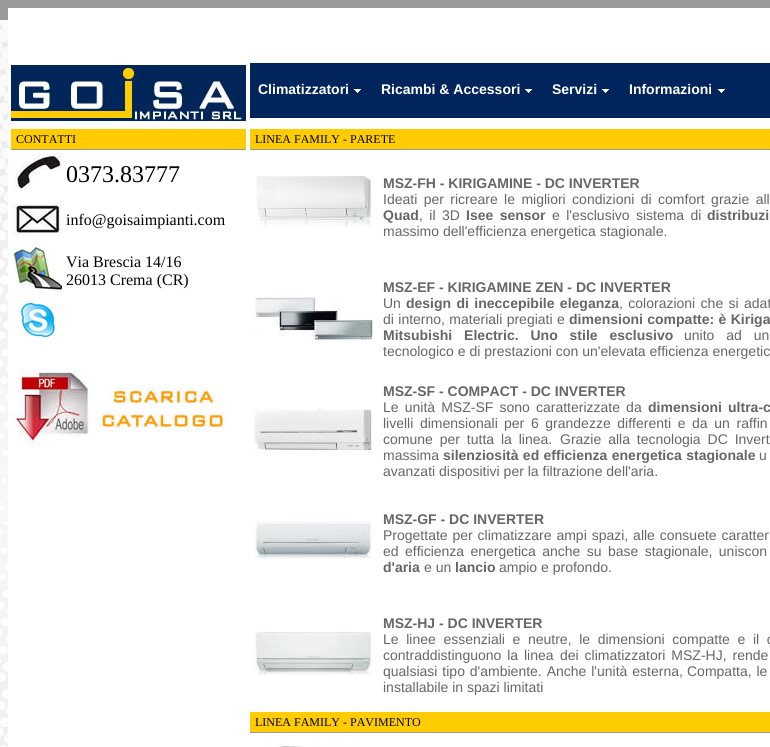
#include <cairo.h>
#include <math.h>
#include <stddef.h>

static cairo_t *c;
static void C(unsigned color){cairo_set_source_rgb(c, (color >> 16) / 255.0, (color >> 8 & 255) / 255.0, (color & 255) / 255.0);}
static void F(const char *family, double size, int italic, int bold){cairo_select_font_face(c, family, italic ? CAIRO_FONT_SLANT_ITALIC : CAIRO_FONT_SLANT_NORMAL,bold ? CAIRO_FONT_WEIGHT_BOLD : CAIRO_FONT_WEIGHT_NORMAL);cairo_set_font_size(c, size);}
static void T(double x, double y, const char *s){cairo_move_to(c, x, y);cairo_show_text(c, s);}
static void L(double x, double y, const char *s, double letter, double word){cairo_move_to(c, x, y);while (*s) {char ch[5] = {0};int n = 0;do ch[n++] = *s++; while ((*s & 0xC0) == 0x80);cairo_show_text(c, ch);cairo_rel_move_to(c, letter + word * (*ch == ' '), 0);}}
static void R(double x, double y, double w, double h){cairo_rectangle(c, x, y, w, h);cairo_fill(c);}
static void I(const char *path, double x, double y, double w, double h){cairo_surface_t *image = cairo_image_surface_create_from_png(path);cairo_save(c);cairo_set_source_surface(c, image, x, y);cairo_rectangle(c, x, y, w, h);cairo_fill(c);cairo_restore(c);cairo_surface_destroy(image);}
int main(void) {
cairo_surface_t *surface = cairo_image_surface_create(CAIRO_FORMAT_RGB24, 770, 747);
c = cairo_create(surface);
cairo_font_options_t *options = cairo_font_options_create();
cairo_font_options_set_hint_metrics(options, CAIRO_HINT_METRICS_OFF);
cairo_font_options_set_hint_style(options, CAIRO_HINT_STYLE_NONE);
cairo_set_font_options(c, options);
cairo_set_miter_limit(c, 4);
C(0xffffff);
cairo_paint(c);
I("1.png",0,0,770,747);
C(0xffffff);
R(8,8,762,739);
I("2.png",11,65,235,56);
C(0x00255c);
R(250,63,520,55);
I("3.png",353,87,8,8);
F("Liberation Sans",14,0,1);
C(0xffffff);
T(258,94,"Climatizzatori");
I("4.png",524,87,9,8);
T(381,94,"Ricambi & Accessori");
I("4.png",601,87,9,8);
T(552,94,"Servizi");
I("5.png",717,87,8,8);
T(629,94,"Informazioni");
C(0xffcc00);
R(11,129,235,20);
C(0x999999);
R(11,149,235,1);
F("Liberation Serif",12,0,0);
C(0x000000);
T(16,143,"CONTATTI");
I("6.png",14,153,48,38);
F("Liberation Serif",24,0,0);
T(66,182,"0373.83777");
I("7.png",14,203,48,33);
F("Liberation Serif",16,0,0);
T(66,225,"info@goisaimpianti.com");
I("8.png",14,245,48,48);
T(66,267,"Via Brescia 14/16");
T(66,285,"26013 Crema (CR)");
I("9.png",14,301,48,38);
I("10.png",11,372,216,72);
C(0xffcc00);
R(250,129,520,20);
C(0x999999);
R(250,149,520,1);
F("Liberation Serif",12,0,0);
C(0x000000);
T(255,143,"LINEA FAMILY - PARETE");
I("11.png",256,176,117,51);
F("Liberation Sans",14,0,1);
C(0x666666);
T(383,188,"MSZ-FH - KIRIGAMINE - DC INVERTER");
F("Liberation Sans",14,0,0);
L(383,204,"Ideati per ricreare le migliori condizioni di comfort grazie all",0,2.5);
F("Liberation Sans",14,0,1);
T(383,220,"Quad");
F("Liberation Sans",14,0,0);
L(419,220,", il 3D",0,2.5);
F("Liberation Sans",14,0,1);
L(466,220,"Isee sensor",0,2.5);
F("Liberation Sans",14,0,0);
L(552,220,"e l'esclusivo sistema di",0,2.5);
F("Liberation Sans",14,0,1);
L(707,220,"distribuzi",0,2.5);
F("Liberation Sans",14,0,0);
T(383,236,"massimo dell'efficienza energetica stagionale.");
I("12.png",253,296,120,48);
F("Liberation Sans",14,0,1);
T(383,292,"MSZ-EF - KIRIGAMINE ZEN - DC INVERTER");
F("Liberation Sans",14,0,0);
T(383,308,"Un");
F("Liberation Sans",14,0,1);
L(406,308,"design di ineccepibile eleganza",0,1.5);
F("Liberation Sans",14,0,0);
L(619,308,", colorazioni che si adat",0,1.5);
L(383,324,"di interno, materiali pregiati e",0,.5);
F("Liberation Sans",14,0,1);
L(569,324,"dimensioni compatte: è Kiriga",0,.5);
L(383,340,"Mitsubishi Electric. Uno stile esclusivo",0,8);
F("Liberation Sans",14,0,0);
L(684,340,"unito ad un",0,8);
T(383,356,"tecnologico e di prestazioni con un'elevata efficienza energetic");
I("13.png",253,408,120,48);
F("Liberation Sans",14,0,1);
T(383,396,"MSZ-SF - COMPACT - DC INVERTER");
F("Liberation Sans",14,0,0);
L(383,412,"Le unità MSZ-SF sono caratterizzate da",0,2.25);
F("Liberation Sans",14,0,1);
L(648,412,"dimensioni ultra-c",0,2.25);
F("Liberation Sans",14,0,0);
L(383,428,"livelli dimensionali",0,2.75);
L(504,428,"per 6 grandezze differenti e da un raffin",0,2.75);
L(383,444,"comune per tutta la linea.",0,3);
L(560,444,"Grazie alla tecnologia DC Invert",0,3);
T(383,460,"massima");
F("Liberation Sans",14,0,1);
L(443,460,"silenziosità ed efficienza energetica stagionale",0,.5);
F("Liberation Sans",14,0,0);
L(759,460,"u",0,.5);
T(383,476,"avanzati dispositivi per la filtrazione dell'aria.");
I("14.png",253,521,120,39);
F("Liberation Sans",14,0,1);
T(383,524,"MSZ-GF - DC INVERTER");
F("Liberation Sans",14,0,0);
L(383,540,"Progettate per climatizzare ampi spazi, alle consuete caratter",0,1);
L(383,556,"ed efficienza energetica anche su base stagionale, uniscon",0,2.5);
F("Liberation Sans",14,0,1);
T(383,572,"d'aria");
F("Liberation Sans",14,0,0);
T(424,572,"e un");
F("Liberation Sans",14,0,1);
T(455,572,"lancio");
F("Liberation Sans",14,0,0);
T(499,572,"ampio e profondo.");
I("15.png",253,632,120,43);
F("Liberation Sans",14,0,1);
T(383,628,"MSZ-HJ - DC INVERTER");
F("Liberation Sans",14,0,0);
L(383,644,"Le linee essenziali e neutre, le dimensioni compatte e il c",0,3.75);
L(383,660,"contraddistinguono la linea",0,2);
L(560,660,"dei climatizzatori MSZ-HJ, rende",0,2);
L(383,676,"qualsiasi tipo d'ambiente. Anche l'unità esterna,",0,1);
L(687,676,"Compatta, le",0,1);
T(383,692,"installabile in spazi limitati");
C(0xffcc00);
R(250,712,520,20);
C(0x999999);
R(250,732,520,1);
F("Liberation Serif",12,0,0);
C(0x000000);
T(255,726,"LINEA FAMILY - PAVIMENTO");
I("16.png",269,743,89,4);
cairo_surface_write_to_png(surface, "o.png");
cairo_font_options_destroy(options);
cairo_destroy(c);
cairo_surface_destroy(surface);
return 0;
}
